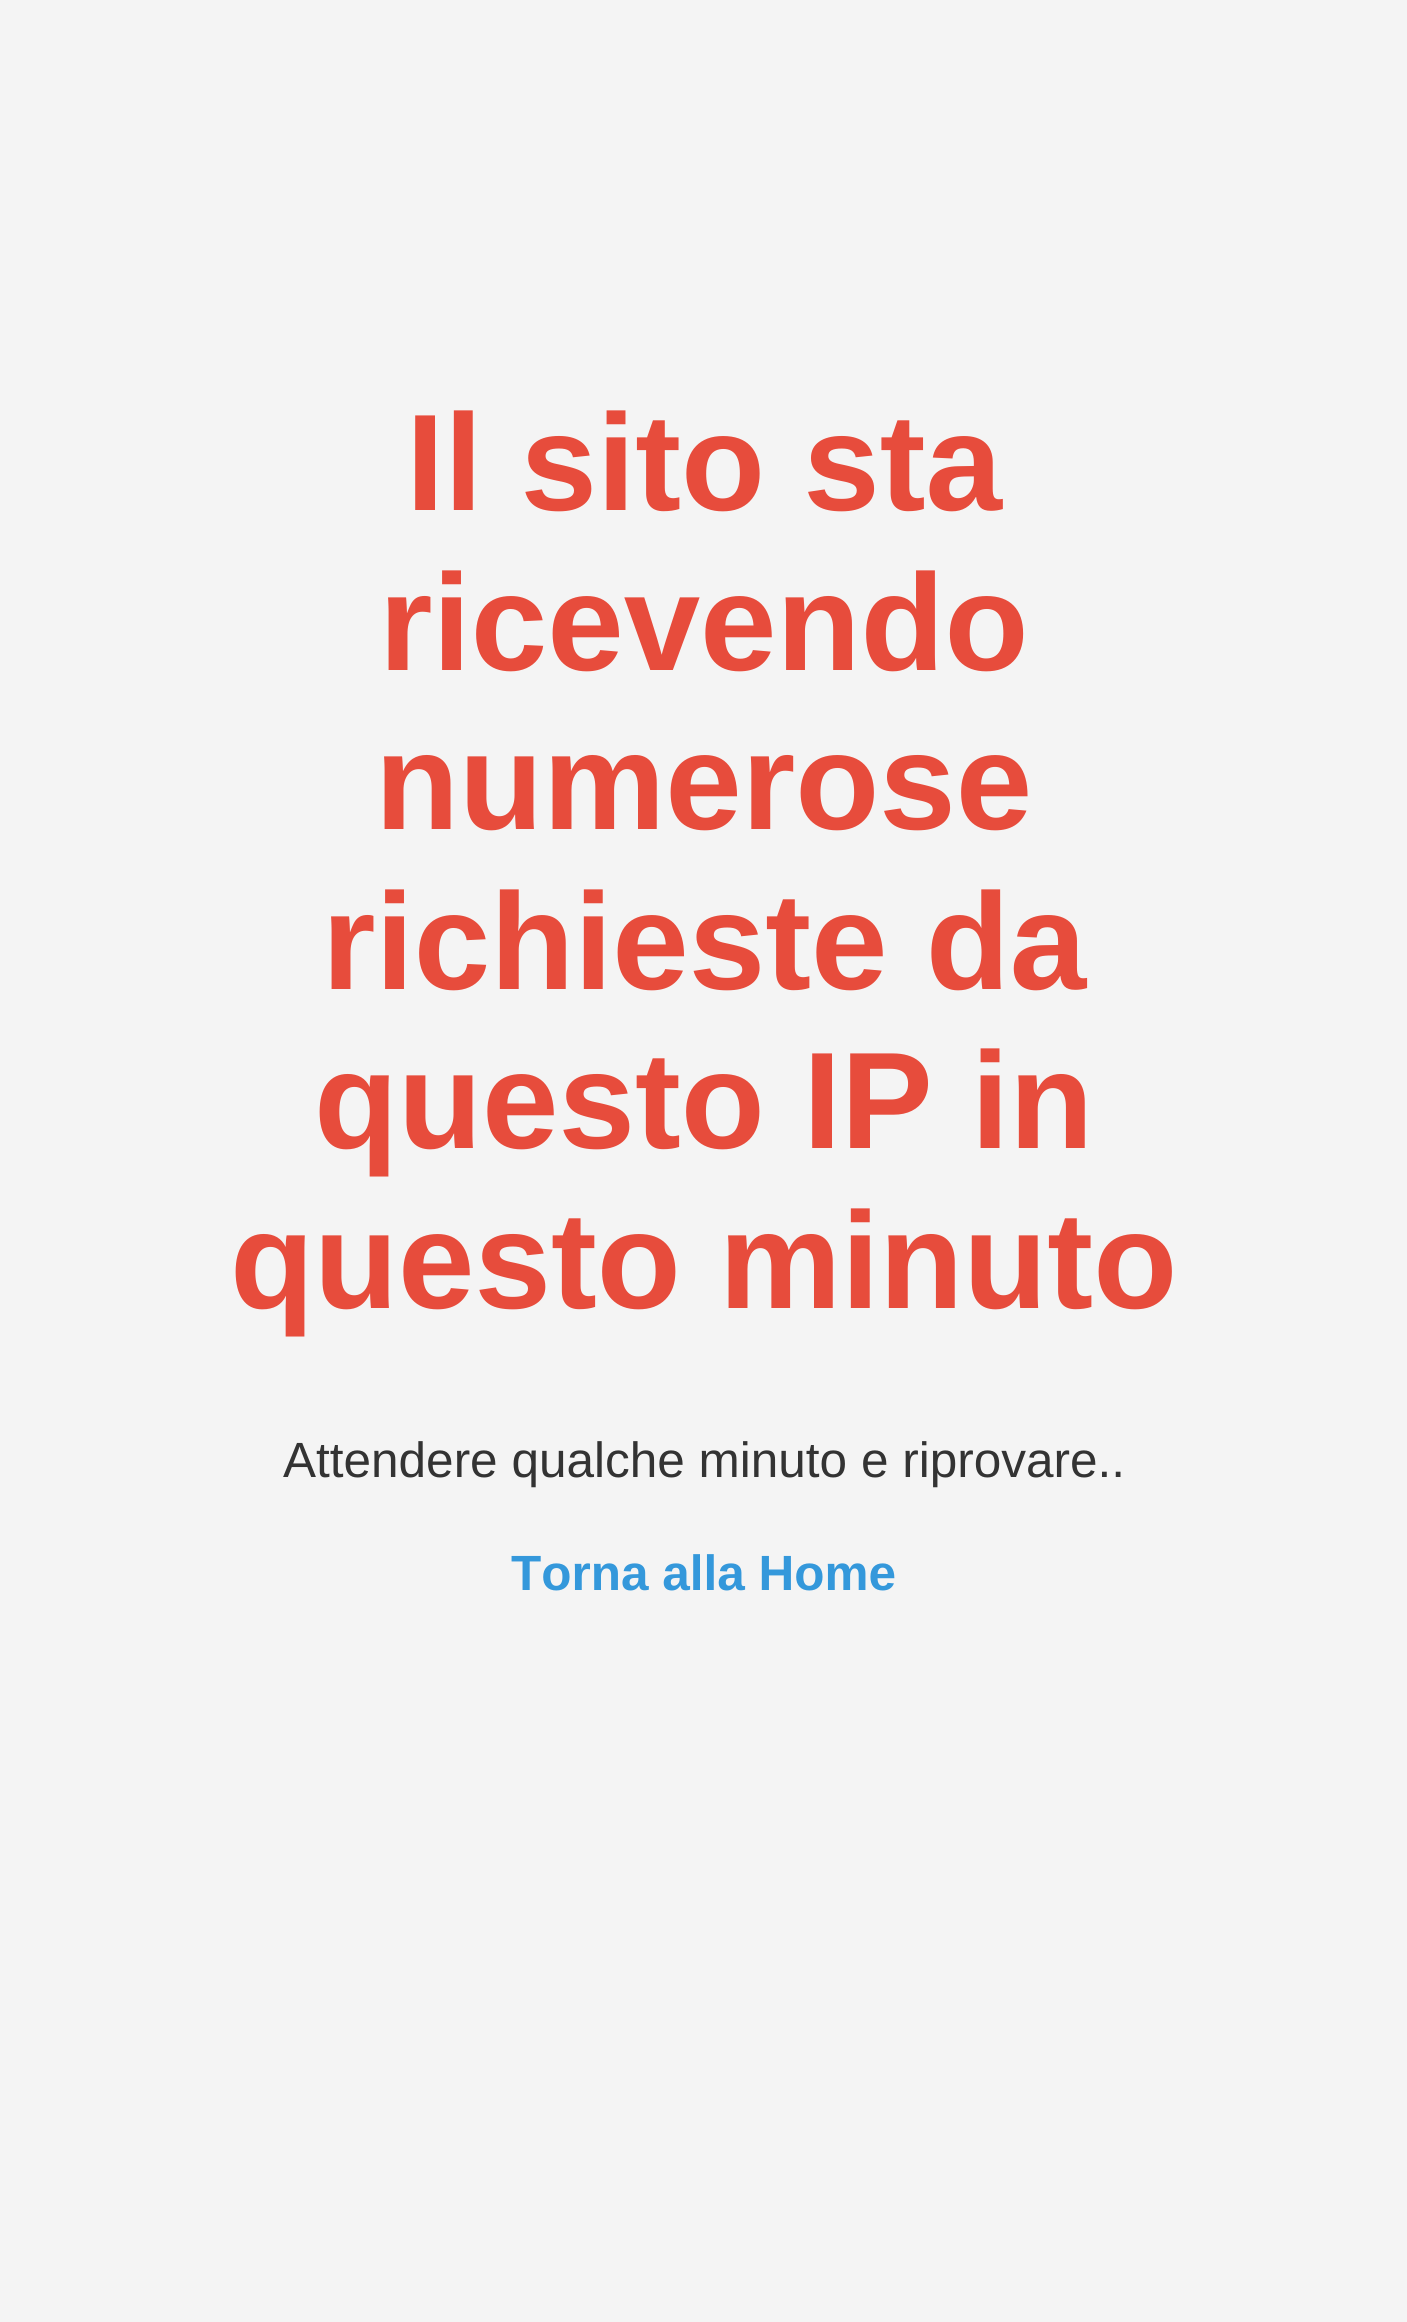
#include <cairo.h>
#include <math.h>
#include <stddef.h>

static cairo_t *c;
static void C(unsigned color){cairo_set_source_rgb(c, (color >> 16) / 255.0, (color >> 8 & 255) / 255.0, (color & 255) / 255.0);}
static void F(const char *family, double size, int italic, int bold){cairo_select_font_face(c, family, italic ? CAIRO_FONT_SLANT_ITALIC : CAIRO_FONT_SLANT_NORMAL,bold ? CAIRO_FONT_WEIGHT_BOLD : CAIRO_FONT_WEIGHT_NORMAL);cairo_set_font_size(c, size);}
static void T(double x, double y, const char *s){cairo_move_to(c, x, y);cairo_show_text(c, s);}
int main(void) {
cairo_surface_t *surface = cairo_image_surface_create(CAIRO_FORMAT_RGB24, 1407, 2322);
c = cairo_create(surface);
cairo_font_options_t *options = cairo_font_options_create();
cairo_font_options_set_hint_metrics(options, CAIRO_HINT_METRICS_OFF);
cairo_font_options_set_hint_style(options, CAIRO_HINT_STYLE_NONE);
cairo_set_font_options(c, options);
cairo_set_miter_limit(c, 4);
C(0xf4f4f4);
cairo_paint(c);
F("Liberation Sans",137.5,0,1);
C(0xe74c3c);
T(406,510,"Il sito sta");
T(379,670,"ricevendo");
T(375,829,"numerose");
T(322,989,"richieste da");
T(314,1148,"questo IP in");
T(230,1308,"questo minuto");
F("Liberation Sans",49.5,0,0);
C(0x333333);
T(283,1477,"Attendere qualche minuto e riprovare..");
F("Liberation Sans",49.5,0,1);
C(0x3498db);
T(511,1590,"Torna alla Home");
cairo_surface_write_to_png(surface, "o.png");
cairo_font_options_destroy(options);
cairo_destroy(c);
cairo_surface_destroy(surface);
return 0;
}
